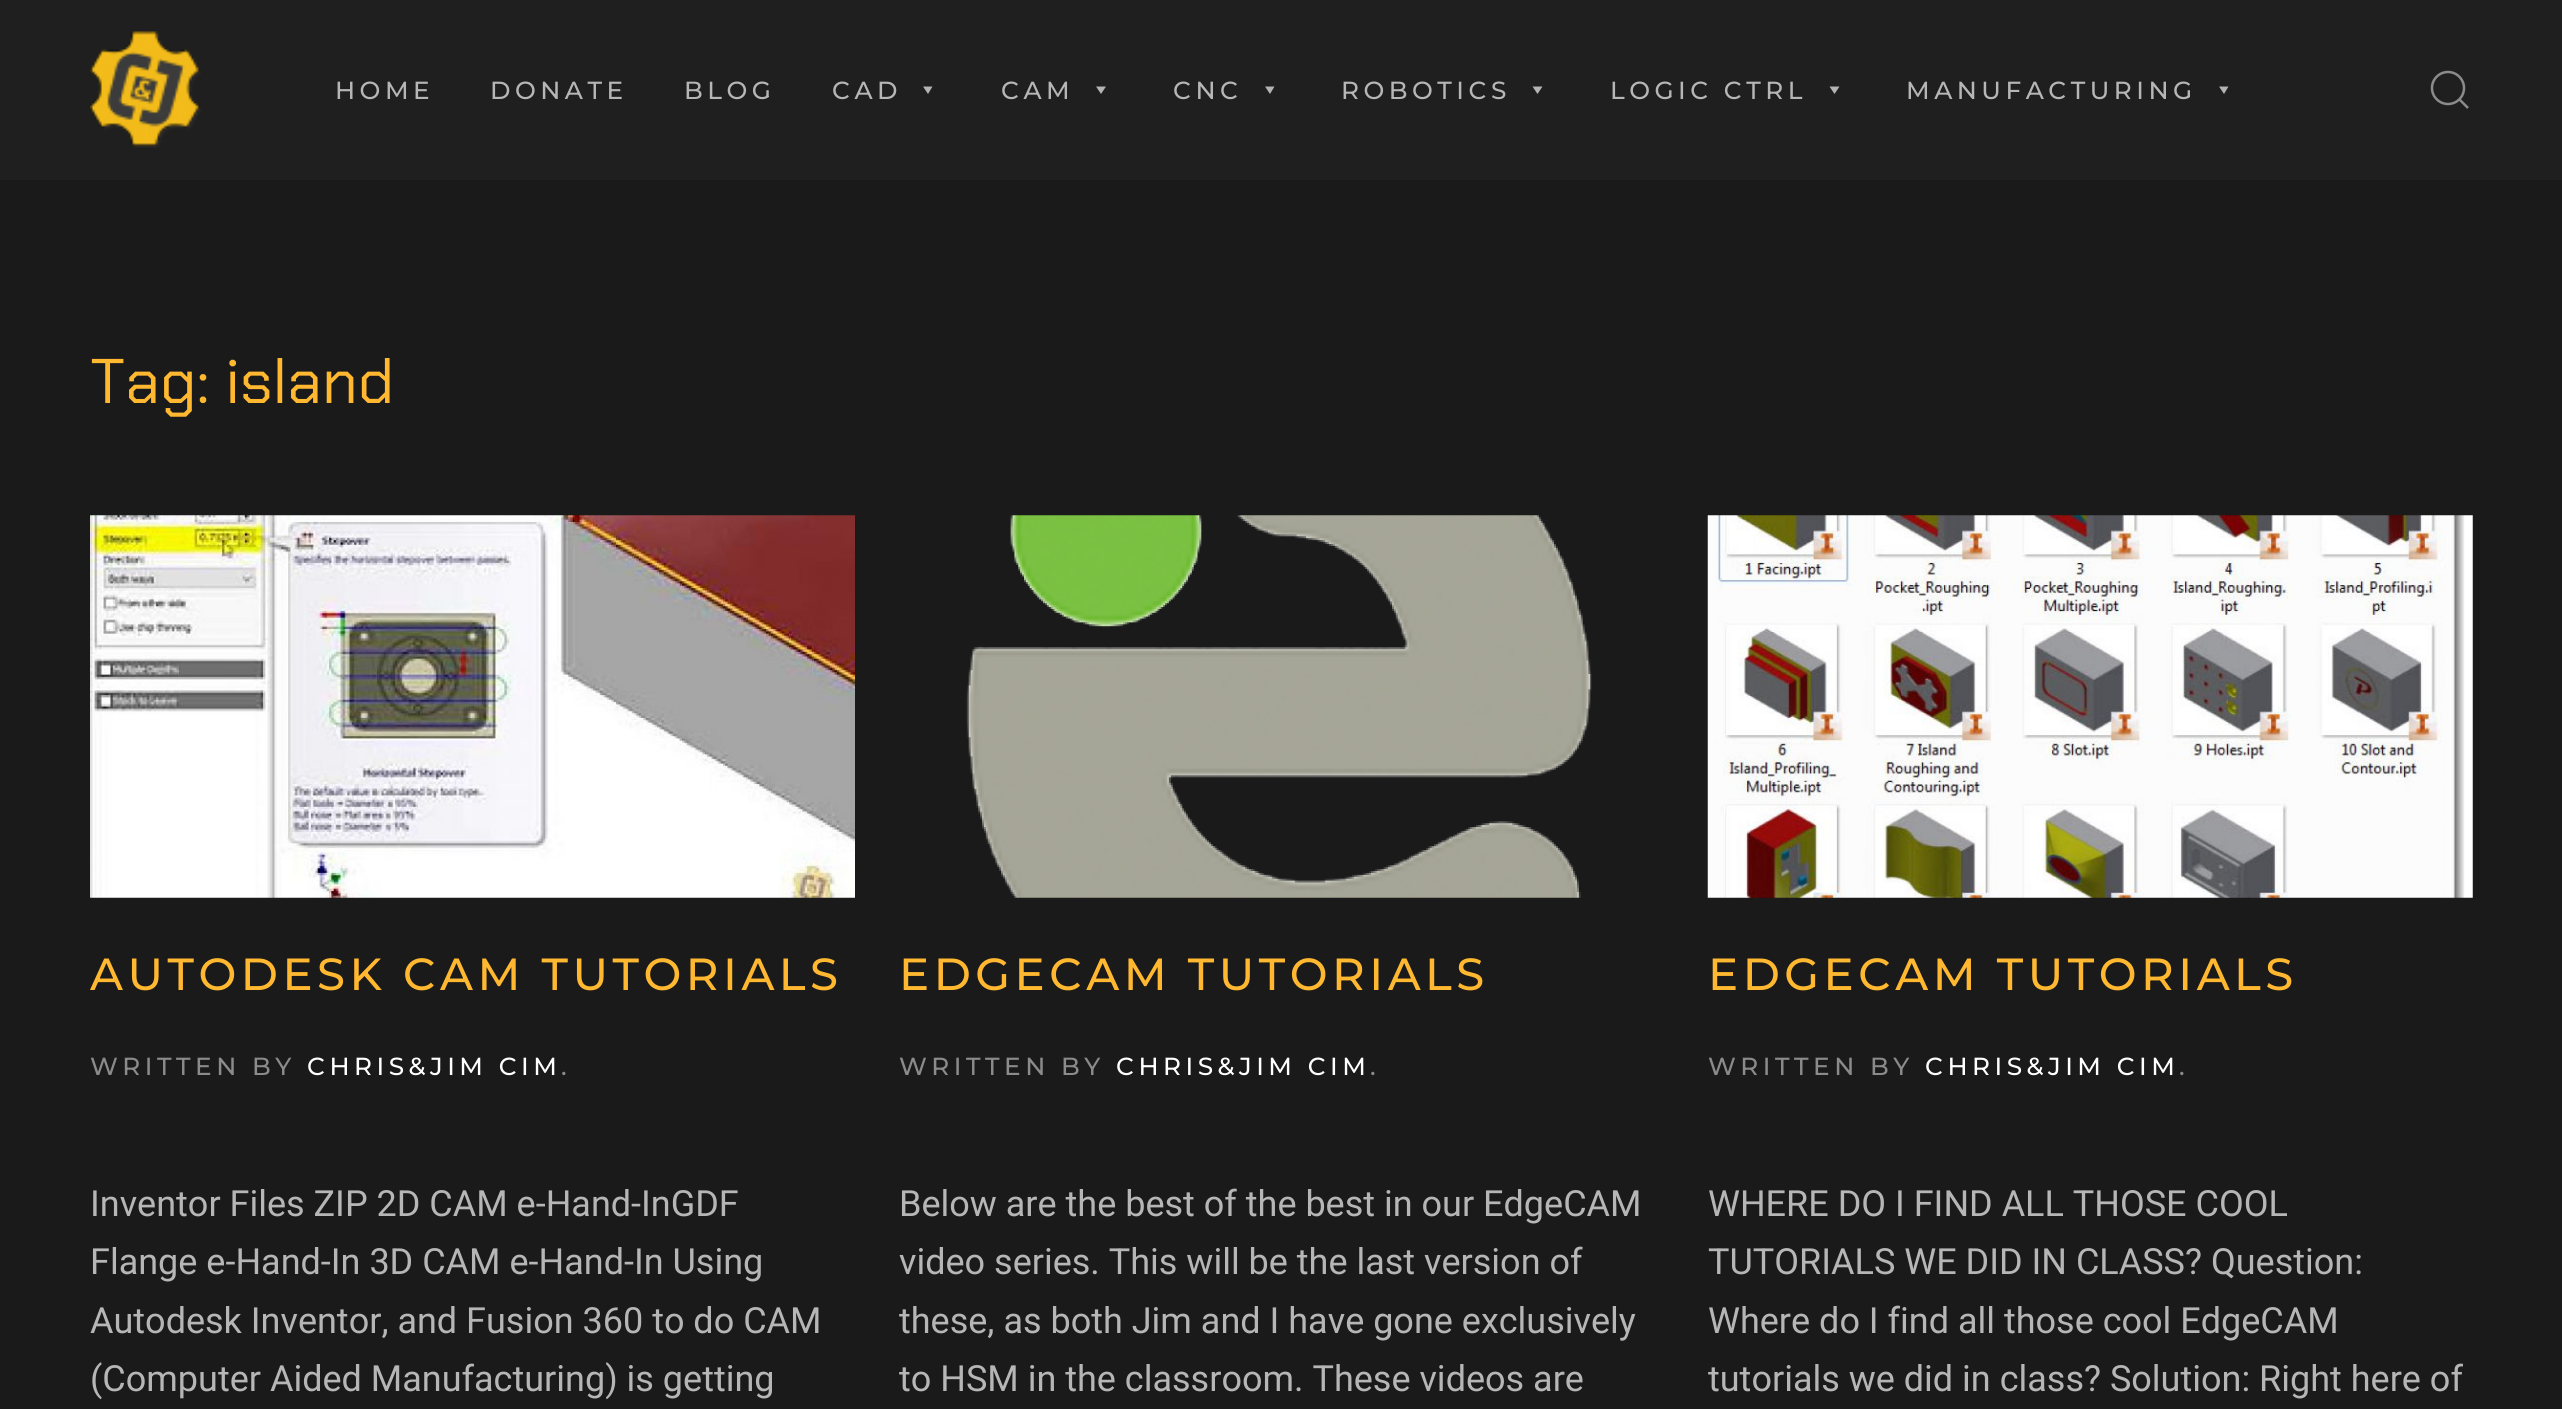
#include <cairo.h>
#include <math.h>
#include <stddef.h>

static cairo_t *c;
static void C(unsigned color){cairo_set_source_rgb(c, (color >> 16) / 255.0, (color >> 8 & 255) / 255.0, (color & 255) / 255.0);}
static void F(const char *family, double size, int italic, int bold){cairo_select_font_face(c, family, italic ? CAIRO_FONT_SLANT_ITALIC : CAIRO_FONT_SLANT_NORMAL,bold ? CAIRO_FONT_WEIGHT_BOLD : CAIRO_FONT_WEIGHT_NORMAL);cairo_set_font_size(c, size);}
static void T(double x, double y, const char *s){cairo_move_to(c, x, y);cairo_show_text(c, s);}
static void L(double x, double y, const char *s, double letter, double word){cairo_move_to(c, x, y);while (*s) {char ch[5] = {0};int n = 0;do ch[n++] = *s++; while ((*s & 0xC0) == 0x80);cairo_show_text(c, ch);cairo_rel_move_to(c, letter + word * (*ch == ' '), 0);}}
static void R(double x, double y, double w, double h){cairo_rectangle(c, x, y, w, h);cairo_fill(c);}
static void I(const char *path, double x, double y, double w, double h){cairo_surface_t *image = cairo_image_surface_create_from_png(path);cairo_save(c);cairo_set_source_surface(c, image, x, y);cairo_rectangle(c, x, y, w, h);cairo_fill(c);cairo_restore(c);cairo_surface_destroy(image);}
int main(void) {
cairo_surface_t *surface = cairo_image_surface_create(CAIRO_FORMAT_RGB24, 2562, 1409);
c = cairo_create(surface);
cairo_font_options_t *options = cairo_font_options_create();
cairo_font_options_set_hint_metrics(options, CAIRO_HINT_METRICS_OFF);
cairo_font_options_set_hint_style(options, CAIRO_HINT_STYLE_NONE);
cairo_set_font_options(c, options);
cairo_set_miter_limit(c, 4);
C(0x1a1a1a);
cairo_paint(c);
C(0x1f1f1f);
R(0,0,2562,180);
I("1.png",90,31,111,117);
F("Montserrat Thin",24.75,0,0);
C(0xb6b6b6);
L(335,99,"HOME",4.5,0);
L(490,99,"DONATE",4.5,0);
L(684,99,"BLOG",4.5,0);
L(832,99,"CAD",4.5,0);
C(0xb4b4b4);
cairo_new_path(c);
cairo_move_to(c,932.5,86.5);
cairo_line_to(c,928,94);
cairo_line_to(c,923,86.5);
cairo_close_path(c);
cairo_fill(c);
C(0xb6b6b6);
L(1001,99,"CAM",4.5,0);
C(0xb4b4b4);
cairo_new_path(c);
cairo_move_to(c,1106,86.5);
cairo_line_to(c,1101,94);
cairo_line_to(c,1096,86.5);
cairo_close_path(c);
cairo_fill(c);
C(0xb6b6b6);
L(1173,99,"CNC",4.5,0);
C(0xb4b4b4);
cairo_new_path(c);
cairo_move_to(c,1274.5,86.5);
cairo_line_to(c,1270,94);
cairo_line_to(c,1265,86.5);
cairo_close_path(c);
cairo_fill(c);
C(0xb6b6b6);
L(1341,99,"ROBOTICS",4.5,0);
C(0xb4b4b4);
cairo_new_path(c);
cairo_move_to(c,1542.5,86.5);
cairo_line_to(c,1537.5,94);
cairo_line_to(c,1532.5,86.5);
cairo_close_path(c);
cairo_fill(c);
C(0xb6b6b6);
L(1610,99,"LOGIC CTRL",4.5,0);
C(0xb4b4b4);
cairo_new_path(c);
cairo_move_to(c,1839.5,86.5);
cairo_line_to(c,1834.5,94);
cairo_line_to(c,1829.5,86.5);
cairo_close_path(c);
cairo_fill(c);
C(0xb6b6b6);
L(1906,99,"MANUFACTURING",4.5,0);
C(0xb4b4b4);
cairo_new_path(c);
cairo_move_to(c,2228.5,86.5);
cairo_line_to(c,2224,94);
cairo_line_to(c,2219,86.5);
cairo_close_path(c);
cairo_fill(c);
cairo_arc(c,2448,88,16,0,2 * M_PI);
C(0x8b8b8c);
cairo_set_line_width(c,2.5);
cairo_stroke(c);
cairo_new_path(c);
cairo_move_to(c,2459,99);
cairo_line_to(c,2468,108);
cairo_close_path(c);
cairo_stroke(c);
F("Chakra Petch",63,0,0);
C(0xffb830);
T(90,403,"Tag: island");
I("2.png",90,515,765,383);
F("Montserrat Thin",45,0,0);
L(90,990,"AUTODESK CAM TUTORIALS",4.5,0);
F("Montserrat Thin",24.75,0,0);
C(0x8b8b8c);
L(90,1075,"WRITTEN BY",4.5,0);
C(0xffffff);
L(307,1075,"CHRIS&JIM CIM",4.5,0);
C(0x8b8b8c);
L(561,1075,".",4.5,0);
F("Roboto",36,0,0);
C(0xb6b6b6);
T(90,1216,"Inventor Files ZIP 2D CAM e-Hand-InGDF");
T(90,1274,"Flange e-Hand-In 3D CAM e-Hand-In Using");
T(90,1333,"Autodesk Inventor, and Fusion 360 to do CAM");
T(90,1391,"(Computer Aided Manufacturing) is getting");
I("3.png",966,515,626,383);
F("Montserrat Thin",45,0,0);
C(0xffb830);
L(899,990,"EDGECAM TUTORIALS",4.5,0);
F("Montserrat Thin",24.75,0,0);
C(0x8b8b8c);
L(899,1075,"WRITTEN BY",4.5,0);
C(0xffffff);
L(1116,1075,"CHRIS&JIM CIM",4.5,0);
C(0x8b8b8c);
L(1370,1075,".",4.5,0);
F("Roboto",36,0,0);
C(0xb6b6b6);
T(899,1216,"Below are the best of the best in our EdgeCAM");
T(899,1274,"video series. This will be the last version of");
T(899,1333,"these, as both Jim and I have gone exclusively");
T(899,1391,"to HSM in the classroom. These videos are");
I("4.png",1707,515,766,383);
F("Montserrat Thin",45,0,0);
C(0xffb830);
L(1708,990,"EDGECAM TUTORIALS",4.5,0);
F("Montserrat Thin",24.75,0,0);
C(0x8b8b8c);
L(1708,1075,"WRITTEN BY",4.5,0);
C(0xffffff);
L(1925,1075,"CHRIS&JIM CIM",4.5,0);
C(0x8b8b8c);
L(2179,1075,".",4.5,0);
F("Roboto",36,0,0);
C(0xb6b6b6);
T(1708,1216,"WHERE DO I FIND ALL THOSE COOL");
T(1708,1274,"TUTORIALS WE DID IN CLASS? Question:");
T(1708,1333,"Where do I find all those cool EdgeCAM");
T(1708,1391,"tutorials we did in class? Solution: Right here of");
cairo_surface_write_to_png(surface, "o.png");
cairo_font_options_destroy(options);
cairo_destroy(c);
cairo_surface_destroy(surface);
return 0;
}
